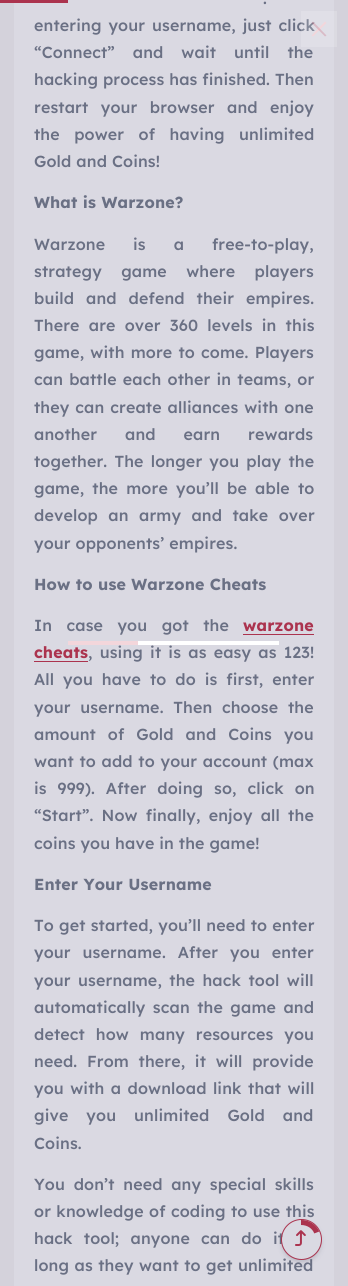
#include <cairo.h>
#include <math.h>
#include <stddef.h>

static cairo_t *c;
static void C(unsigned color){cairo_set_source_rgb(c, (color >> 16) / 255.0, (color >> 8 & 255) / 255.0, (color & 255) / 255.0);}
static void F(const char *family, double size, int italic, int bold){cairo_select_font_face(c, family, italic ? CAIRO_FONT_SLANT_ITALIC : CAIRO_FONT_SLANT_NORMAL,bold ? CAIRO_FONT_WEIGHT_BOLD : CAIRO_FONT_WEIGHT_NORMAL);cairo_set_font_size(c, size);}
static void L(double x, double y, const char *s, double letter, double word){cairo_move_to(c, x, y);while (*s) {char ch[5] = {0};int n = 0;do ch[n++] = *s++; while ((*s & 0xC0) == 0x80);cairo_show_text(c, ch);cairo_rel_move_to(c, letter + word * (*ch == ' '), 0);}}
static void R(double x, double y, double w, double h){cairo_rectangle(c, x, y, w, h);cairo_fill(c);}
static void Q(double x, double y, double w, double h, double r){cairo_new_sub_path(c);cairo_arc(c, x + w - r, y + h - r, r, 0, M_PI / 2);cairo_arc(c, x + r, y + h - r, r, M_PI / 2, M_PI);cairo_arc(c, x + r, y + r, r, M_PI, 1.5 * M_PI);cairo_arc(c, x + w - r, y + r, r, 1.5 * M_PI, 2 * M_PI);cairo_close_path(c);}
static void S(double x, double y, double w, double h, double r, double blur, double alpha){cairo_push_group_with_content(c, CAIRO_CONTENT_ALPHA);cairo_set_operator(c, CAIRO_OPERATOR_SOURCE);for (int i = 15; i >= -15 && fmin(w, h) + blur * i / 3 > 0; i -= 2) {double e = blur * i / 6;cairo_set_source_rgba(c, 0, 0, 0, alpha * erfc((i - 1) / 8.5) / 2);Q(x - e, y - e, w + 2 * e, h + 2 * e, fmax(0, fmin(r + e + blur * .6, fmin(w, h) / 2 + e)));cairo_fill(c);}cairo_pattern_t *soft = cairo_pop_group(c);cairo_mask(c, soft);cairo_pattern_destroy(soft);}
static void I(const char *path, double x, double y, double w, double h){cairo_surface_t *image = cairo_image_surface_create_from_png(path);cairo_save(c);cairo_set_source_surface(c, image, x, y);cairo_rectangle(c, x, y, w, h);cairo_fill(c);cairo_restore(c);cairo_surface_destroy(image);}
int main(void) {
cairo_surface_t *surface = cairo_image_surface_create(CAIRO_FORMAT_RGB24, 348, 1286);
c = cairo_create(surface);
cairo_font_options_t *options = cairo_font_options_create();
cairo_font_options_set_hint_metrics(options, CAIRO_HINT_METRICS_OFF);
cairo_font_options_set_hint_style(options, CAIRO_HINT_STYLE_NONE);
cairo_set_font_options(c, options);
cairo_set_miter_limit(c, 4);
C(0xd4d2db);
cairo_paint(c);
C(0xdad9e2);
R(14,0,320,1286);
C(0xab334e);
R(0,0,68,3);
F("Lexend Deca Medium",16,0,0);
C(0x6a7084);
L(263,4,".",.15,2);
L(34,31,"entering your username, just click",.15,2);
L(34,58,"“Connect” and wait until the",.15,13);
L(34,85,"hacking process has finished. Then",.15,0);
L(34,113,"restart your browser and enjoy",.15,7.5);
L(34,140,"the power of having unlimited",.15,9.5);
L(34,167,"Gold and Coins!",.15,0);
F("Lexend Deca",16,0,1);
L(34,208,"What is Warzone?",.15,0);
F("Lexend Deca Medium",16,0,0);
L(34,250,"Warzone is a free-to-play,",.15,23);
L(34,277,"strategy game where players",.15,14.5);
L(34,304,"build and defend their empires.",.15,7);
L(34,331,"There are over 360 levels in this",.15,4.25);
L(34,358,"game, with more to come. Players",.15,1.25);
L(34,385,"can battle each other in teams, or",.15,1.25);
L(34,413,"they can create alliances with one",.15,1);
L(34,440,"another and earn rewards",.15,23);
L(34,467,"together. The longer you play the",.15,2.25);
L(34,494,"game, the more you’ll be able to",.15,3.25);
L(34,521,"develop an army and take over",.15,5.5);
L(34,549,"your opponents’ empires.",.15,0);
F("Lexend Deca",16,0,1);
L(34,590,"How to use Warzone Cheats",.15,0);
F("Lexend Deca Medium",16,0,0);
L(34,631,"In case you got the",.15,9.5);
F("Lexend Deca",16,0,1);
C(0xab334e);
L(243,631,"warzone",.15,0);
R(243,634,71,1);
L(34,658,"cheats",.15,0);
R(34,661,54,1);
F("Lexend Deca Medium",16,0,0);
C(0x6a7084);
L(88,658,", using it is as easy as 123!",.15,2.25);
L(34,685,"All you have to do is first, enter",.15,4);
L(34,713,"your username. Then choose the",.15,4.75);
L(34,740,"amount of Gold and Coins you",.15,7);
L(34,767,"want to add to your account (max",.15,.75);
L(34,794,"is 999). After doing so, click on",.15,6);
L(34,821,"“Start”. Now finally, enjoy all the",.15,3.25);
L(34,849,"coins you have in the game!",.15,0);
F("Lexend Deca",16,0,1);
L(34,890,"Enter Your Username",.15,0);
F("Lexend Deca Medium",16,0,0);
L(34,931,"To get started, you’ll need to enter",.15,.25);
L(34,958,"your username. After you enter",.15,7);
L(34,986,"your username, the hack tool will",.15,2.5);
L(34,1013,"automatically scan the game and",.15,2.5);
L(34,1040,"detect how many resources you",.15,6);
L(34,1067,"need. From there, it will provide",.15,4.75);
L(34,1094,"you with a download link that will",.15,1.5);
L(34,1121,"give you unlimited Gold and",.15,13);
L(34,1149,"Coins.",.15,0);
L(34,1190,"You don’t need any special skills",.15,3.75);
L(34,1217,"or knowledge of coding to use this",.15,.5);
L(34,1244,"hack tool; anyone can do it",.15,6.25);
L(34,1271,"long as they want to get unlimited",.15,.5);
cairo_set_source_rgba(c,1,1,1,0.17);
R(301,11,36,36);
C(0xf3d6db);
cairo_new_path(c);
cairo_move_to(c,311.5,35.5);
cairo_line_to(c,325,21.5);
cairo_line_to(c,326.5,23);
cairo_line_to(c,313,36.5);
cairo_close_path(c);
cairo_fill(c);
cairo_set_source_rgba(c,0.729,0.055,0.161,0.17);
cairo_new_path(c);
cairo_move_to(c,325,36.5);
cairo_line_to(c,311.5,23);
cairo_line_to(c,313,21.5);
cairo_line_to(c,326.5,35.5);
cairo_close_path(c);
cairo_fill(c);
C(0xffffff);
R(138,641,141,4);
C(0xf3d6db);
R(68,641,70,4);
C(0x2f3044);
S(282,1223,39,39,19.5,2.5,.2);
C(0xdad9e2);
cairo_arc(c,301.5,1239.5,19.5,0,2 * M_PI);
cairo_fill(c);
cairo_save(c);
Q(282,1220,39,39,19.5);
cairo_clip(c);
cairo_new_path(c);
cairo_move_to(c,301,1221);
cairo_curve_to(c,309,1221,315.5,1225.5,318,1232);
C(0xab334e);
cairo_set_line_width(c,8);
cairo_stroke(c);
cairo_restore(c);
cairo_arc(c,301.5,1239.5,20,0,2 * M_PI);
C(0xab334e);
cairo_set_line_width(c,1);
cairo_stroke(c);
I("1.png",295,1230,11,16);
cairo_surface_write_to_png(surface, "o.png");
cairo_font_options_destroy(options);
cairo_destroy(c);
cairo_surface_destroy(surface);
return 0;
}
